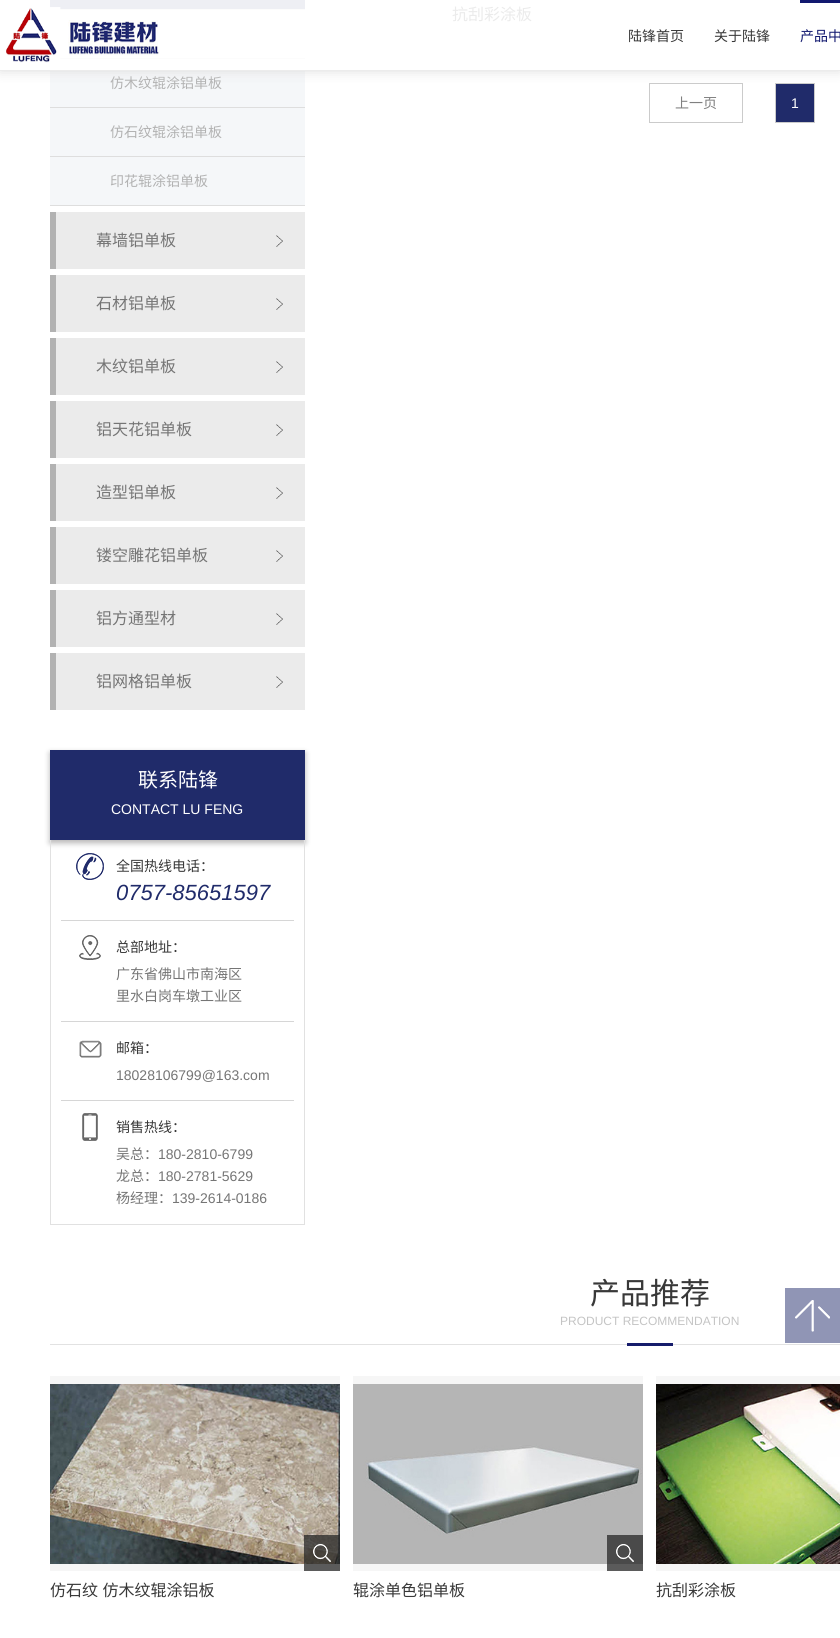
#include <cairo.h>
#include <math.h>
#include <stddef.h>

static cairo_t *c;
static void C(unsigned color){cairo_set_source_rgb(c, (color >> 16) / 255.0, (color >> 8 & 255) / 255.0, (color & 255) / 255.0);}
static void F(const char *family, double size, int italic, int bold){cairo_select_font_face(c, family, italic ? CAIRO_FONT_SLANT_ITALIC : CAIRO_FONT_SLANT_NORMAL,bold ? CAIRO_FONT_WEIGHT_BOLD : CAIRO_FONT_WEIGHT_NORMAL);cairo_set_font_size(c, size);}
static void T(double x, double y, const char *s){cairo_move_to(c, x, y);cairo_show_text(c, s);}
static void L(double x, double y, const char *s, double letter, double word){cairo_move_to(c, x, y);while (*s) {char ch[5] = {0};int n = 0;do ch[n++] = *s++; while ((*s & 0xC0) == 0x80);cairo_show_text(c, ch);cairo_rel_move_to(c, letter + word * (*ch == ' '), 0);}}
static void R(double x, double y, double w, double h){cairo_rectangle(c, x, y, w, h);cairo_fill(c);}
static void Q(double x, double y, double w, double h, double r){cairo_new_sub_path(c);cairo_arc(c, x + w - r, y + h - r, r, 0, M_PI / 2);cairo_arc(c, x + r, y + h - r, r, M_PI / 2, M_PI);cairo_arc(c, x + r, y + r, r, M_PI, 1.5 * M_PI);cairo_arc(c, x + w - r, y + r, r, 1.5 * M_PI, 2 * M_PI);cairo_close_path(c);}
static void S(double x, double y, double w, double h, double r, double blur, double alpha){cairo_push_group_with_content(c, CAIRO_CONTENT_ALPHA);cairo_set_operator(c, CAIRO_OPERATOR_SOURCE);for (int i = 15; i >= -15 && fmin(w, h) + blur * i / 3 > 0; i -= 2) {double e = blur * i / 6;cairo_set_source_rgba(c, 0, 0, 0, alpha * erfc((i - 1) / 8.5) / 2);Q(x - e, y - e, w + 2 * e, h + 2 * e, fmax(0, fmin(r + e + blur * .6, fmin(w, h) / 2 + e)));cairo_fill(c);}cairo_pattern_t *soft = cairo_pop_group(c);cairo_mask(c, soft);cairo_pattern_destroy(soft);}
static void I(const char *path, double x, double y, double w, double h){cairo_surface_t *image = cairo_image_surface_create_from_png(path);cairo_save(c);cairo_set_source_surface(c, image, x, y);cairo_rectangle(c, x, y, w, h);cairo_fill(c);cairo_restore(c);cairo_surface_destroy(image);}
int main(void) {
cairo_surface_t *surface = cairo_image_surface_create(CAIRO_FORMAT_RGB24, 840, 1638);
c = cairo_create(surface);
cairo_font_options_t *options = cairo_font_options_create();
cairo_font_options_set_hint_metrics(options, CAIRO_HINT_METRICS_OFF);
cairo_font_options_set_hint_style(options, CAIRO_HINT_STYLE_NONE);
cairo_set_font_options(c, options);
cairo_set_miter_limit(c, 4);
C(0xffffff);
cairo_paint(c);
F("Noto Sans CJK SC",16,0,0);
C(0xebebeb);
T(452,20,"抗刮彩涂板");
cairo_rectangle(c,649.5,83.5,93,39);
C(0xcbcbcb);
cairo_set_line_width(c,1);
cairo_stroke(c);
F("Noto Sans CJK SC",14,0,0);
C(0x808080);
T(675,108,"上一页");
C(0x202b6a);
cairo_rectangle(c,775.5,83.5,39,39);
cairo_fill_preserve(c);
C(0xcbcbcb);
cairo_stroke(c);
F("Liberation Sans",14,0,0);
C(0xffffff);
T(791,108,"1");
C(0xeeeff4);
R(50,0,255,9);
C(0xfcfcfc);
R(60,9,245,1);
R(60,58,245,1);
C(0xf5f7f9);
R(50,71,255,36);
C(0xdedede);
R(50,107,255,1);
F("Noto Sans CJK SC",14,0,0);
C(0xb2b2b2);
T(110,88,"仿木纹辊涂铝单板");
C(0xf5f7f9);
R(50,108,255,48);
C(0xdedede);
R(50,156,255,1);
C(0xb2b2b2);
T(110,137,"仿石纹辊涂铝单板");
C(0xf5f7f9);
R(50,157,255,48);
C(0xdedede);
R(50,205,255,1);
C(0xb2b2b2);
T(110,186,"印花辊涂铝单板");
C(0xebebeb);
R(56,212,249,57);
I("1.png",276,235,7,12);
C(0xb2b2b2);
R(50,212,6,57);
F("Noto Sans CJK SC",16,0,0);
C(0x757575);
T(96,246,"幕墙铝单板");
C(0xebebeb);
R(56,275,249,57);
I("1.png",276,298,7,12);
C(0xb2b2b2);
R(50,275,6,57);
C(0x757575);
T(96,309,"石材铝单板");
C(0xebebeb);
R(56,338,249,57);
I("1.png",276,361,7,12);
C(0xb2b2b2);
R(50,338,6,57);
C(0x757575);
T(96,372,"木纹铝单板");
C(0xebebeb);
R(56,401,249,57);
I("1.png",276,424,7,12);
C(0xb2b2b2);
R(50,401,6,57);
C(0x757575);
T(96,435,"铝天花铝单板");
C(0xebebeb);
R(56,464,249,57);
I("1.png",276,487,7,12);
C(0xb2b2b2);
R(50,464,6,57);
C(0x757575);
T(96,498,"造型铝单板");
C(0xebebeb);
R(56,527,249,57);
I("1.png",276,550,7,12);
C(0xb2b2b2);
R(50,527,6,57);
C(0x757575);
T(96,561,"镂空雕花铝单板");
C(0xebebeb);
R(56,590,249,57);
I("1.png",276,613,7,12);
C(0xb2b2b2);
R(50,590,6,57);
C(0x757575);
T(96,624,"铝方通型材");
C(0xebebeb);
R(56,653,249,57);
I("1.png",276,676,7,12);
C(0xb2b2b2);
R(50,653,6,57);
C(0x757575);
T(96,687,"铝网格铝单板");
C(0x030000);
S(50,753,255,90,0,3,.3);
C(0x202b6a);
R(50,750,255,90);
F("Noto Sans CJK SC",20,0,0);
C(0xffffff);
T(138,787,"联系陆锋");
F("Liberation Sans",14,0,0);
T(111,814,"CONTACT LU FENG");
C(0xe1e1e1);
R(304,840,1,385);
R(50,840,1,261);
I("2.png",76,853,28,27);
F("Noto Sans CJK SC",14,0,0);
C(0x383838);
T(116,871,"全国热线电话：");
F("Liberation Sans",22,1,0);
C(0x202b6a);
T(116,900,"0757-85651597");
C(0xd6d6d6);
R(61,920,233,1);
I("3.png",79,935,22,25);
F("Noto Sans CJK SC",14,0,0);
C(0x383838);
T(116,952,"总部地址：");
C(0x757575);
T(116,979,"广东省佛山市南海区");
T(116,1001,"里水白岗车墩工业区");
C(0xd6d6d6);
R(61,1021,233,1);
I("4.png",79,1040,23,18);
C(0x383838);
T(116,1053,"邮箱：");
F("Liberation Sans",14,0,0);
C(0x757575);
T(116,1080,"18028106799@163.com");
C(0xd6d6d6);
R(61,1100,233,1);
C(0xe1e1e1);
R(50,1224,255,1);
R(50,1101,1,124);
I("5.png",82,1113,16,28);
F("Noto Sans CJK SC",14,0,0);
C(0x383838);
T(116,1132,"销售热线：");
C(0x757575);
T(116,1159,"吴总：");
F("Liberation Sans",14,0,0);
T(158,1159,"180-2810-6799");
F("Noto Sans CJK SC",14,0,0);
T(116,1181,"龙总：");
F("Liberation Sans",14,0,0);
T(158,1181,"180-2781-5629");
F("Noto Sans CJK SC",14,0,0);
T(116,1203,"杨经理：");
F("Liberation Sans",14,0,0);
T(172,1203,"139-2614-0186");
cairo_save(c);
cairo_rectangle(c,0,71,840,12);
cairo_clip(c);
C(0xdedede);
S(0,0,840,71,0,6,1);
cairo_restore(c);
C(0xececec);
R(0,70,840,1);
I("6.png",6,7,154,56);
F("Noto Sans CJK SC",14,0,0);
C(0x383838);
T(628,41,"陆锋首页");
T(714,41,"关于陆锋");
C(0x11186f);
R(800,0,40,3);
T(800,41,"产品中");
C(0xe2e2e2);
R(50,1344,790,1);
F("Noto Sans CJK SC",30,0,0);
C(0x383838);
T(590,1304,"产品推荐");
F("Liberation Sans",12,0,0);
C(0xc4c4c4);
T(560,1325,"PRODUCT RECOMMENDATION");
C(0x161c6b);
R(627,1343,46,3);
C(0xf6f6f6);
R(50,1376,290,195);
I("7.png",50,1384,290,180);
cairo_set_source_rgba(c,0.153,0.153,0.153,0.75);
R(304,1535,36,36);
I("8.png",313,1544,18,18);
F("Noto Sans CJK SC",16,0,0);
C(0x383838);
L(50,1596,"仿石纹 仿木纹辊涂铝板",0,1);
C(0xf6f6f6);
R(353,1376,290,195);
I("9.png",353,1384,290,180);
cairo_set_source_rgba(c,0.153,0.153,0.153,0.75);
R(607,1535,36,36);
I("10.png",616,1544,18,18);
C(0x383838);
T(353,1596,"辊涂单色铝单板");
C(0xf6f6f6);
R(656,1376,184,195);
I("11.png",656,1384,184,180);
C(0x383838);
T(656,1596,"抗刮彩涂板");
C(0x9095b5);
R(785,1288,55,55);
I("12.png",795,1300,35,32);
cairo_surface_write_to_png(surface, "o.png");
cairo_font_options_destroy(options);
cairo_destroy(c);
cairo_surface_destroy(surface);
return 0;
}
